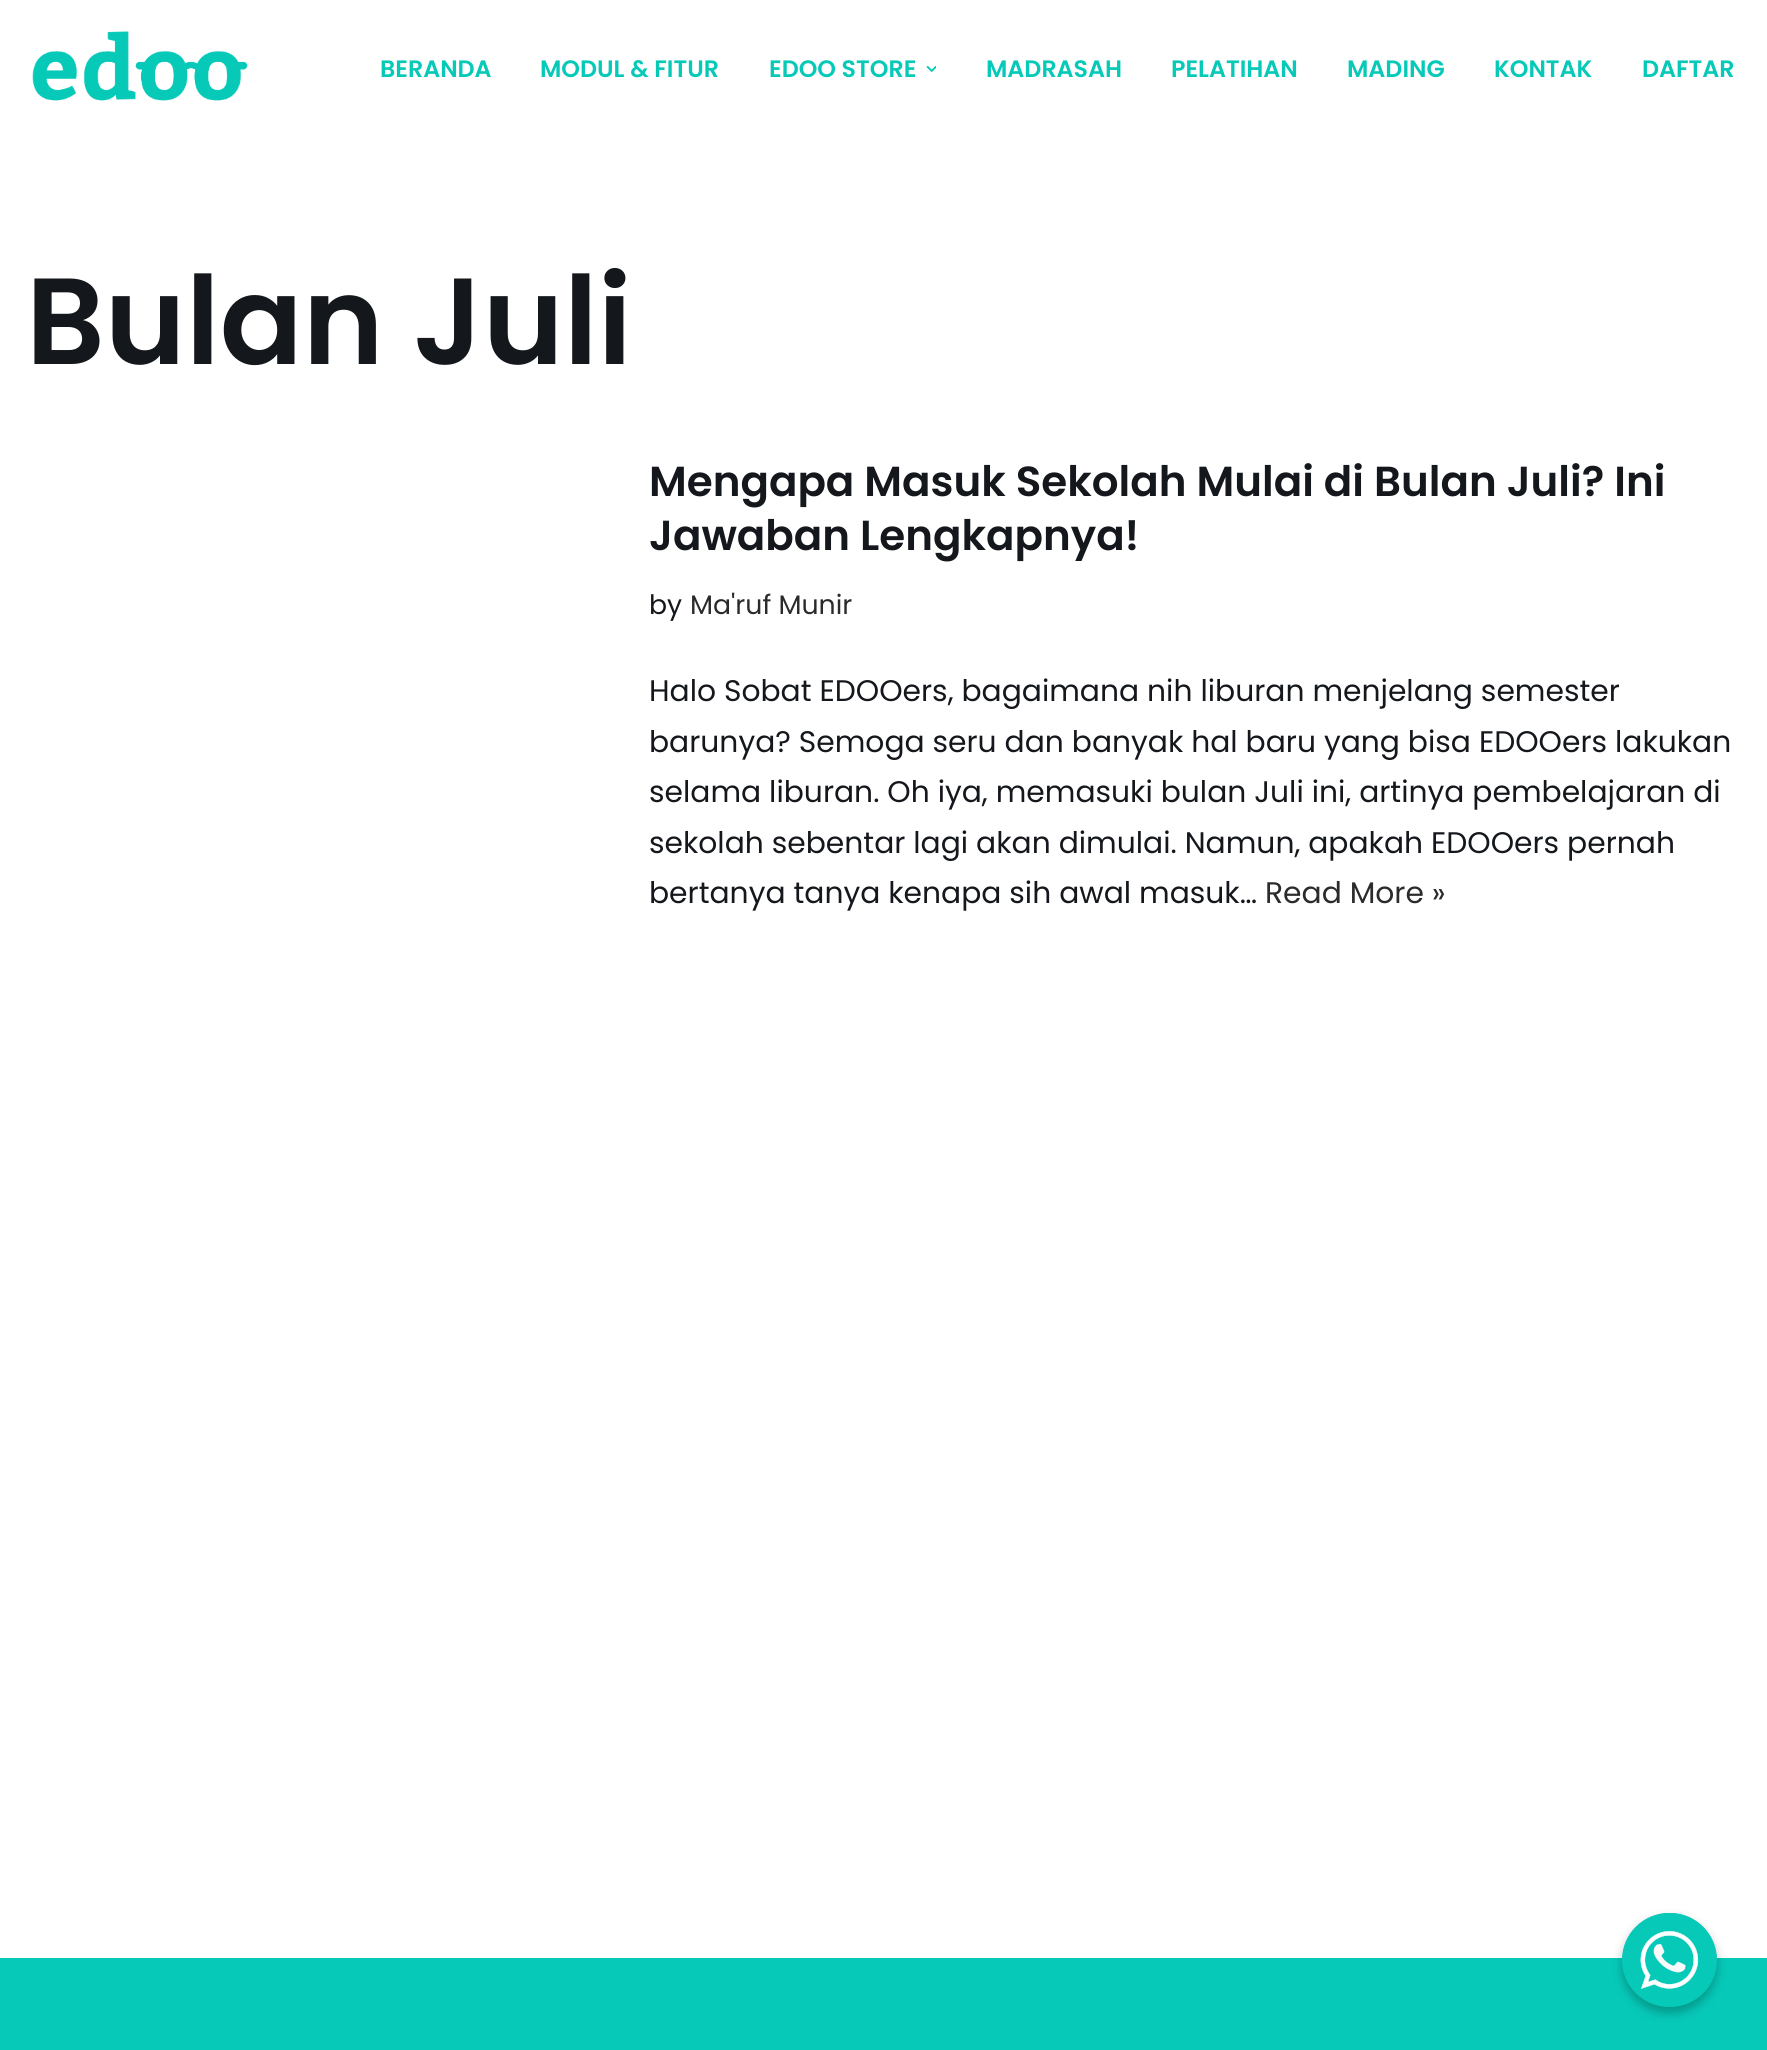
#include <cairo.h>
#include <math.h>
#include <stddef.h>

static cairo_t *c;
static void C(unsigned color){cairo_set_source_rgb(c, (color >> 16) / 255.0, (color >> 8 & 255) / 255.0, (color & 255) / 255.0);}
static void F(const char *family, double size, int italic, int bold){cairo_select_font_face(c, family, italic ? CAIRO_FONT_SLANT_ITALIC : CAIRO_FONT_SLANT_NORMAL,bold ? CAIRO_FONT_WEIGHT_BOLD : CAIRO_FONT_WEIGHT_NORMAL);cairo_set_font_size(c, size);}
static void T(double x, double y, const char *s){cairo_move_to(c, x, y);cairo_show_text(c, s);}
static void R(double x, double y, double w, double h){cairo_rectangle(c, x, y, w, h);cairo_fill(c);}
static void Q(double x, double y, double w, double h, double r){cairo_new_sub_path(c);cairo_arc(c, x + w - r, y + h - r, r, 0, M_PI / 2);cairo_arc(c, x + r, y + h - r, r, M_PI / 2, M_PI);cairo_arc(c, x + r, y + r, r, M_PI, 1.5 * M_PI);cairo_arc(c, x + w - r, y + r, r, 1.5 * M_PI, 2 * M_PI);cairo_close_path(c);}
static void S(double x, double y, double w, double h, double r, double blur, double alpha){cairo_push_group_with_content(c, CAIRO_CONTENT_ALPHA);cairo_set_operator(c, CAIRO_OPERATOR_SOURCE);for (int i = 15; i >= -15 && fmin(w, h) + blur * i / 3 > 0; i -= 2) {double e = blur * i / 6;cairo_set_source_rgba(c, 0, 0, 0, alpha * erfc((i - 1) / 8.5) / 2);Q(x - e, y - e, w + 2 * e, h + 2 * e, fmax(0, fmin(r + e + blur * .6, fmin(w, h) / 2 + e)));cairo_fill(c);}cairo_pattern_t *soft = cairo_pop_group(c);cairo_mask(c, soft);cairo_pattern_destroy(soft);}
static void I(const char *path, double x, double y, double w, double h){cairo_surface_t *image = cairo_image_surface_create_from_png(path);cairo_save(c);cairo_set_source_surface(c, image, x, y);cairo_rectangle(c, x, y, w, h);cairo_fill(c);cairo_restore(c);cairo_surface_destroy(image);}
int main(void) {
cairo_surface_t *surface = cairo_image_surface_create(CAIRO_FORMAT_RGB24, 1767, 2050);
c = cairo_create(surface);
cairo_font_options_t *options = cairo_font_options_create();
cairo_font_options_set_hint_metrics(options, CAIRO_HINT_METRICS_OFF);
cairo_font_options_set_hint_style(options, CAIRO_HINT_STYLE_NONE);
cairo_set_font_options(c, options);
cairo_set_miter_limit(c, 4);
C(0xffffff);
cairo_paint(c);
I("1.png",32,31,216,70);
F("Poppins SemiBold",23.75,0,0);
C(0x06c9b8);
T(380,77,"BERANDA");
T(540,77,"MODUL & FITUR");
T(769,77,"EDOO STORE");
I("2.png",926,65,10,7);
T(986,77,"MADRASAH");
T(1171,77,"PELATIHAN");
T(1347,77,"MADING");
T(1494,77,"KONTAK");
T(1642,77,"DAFTAR");
F("Poppins SemiBold",122.5,0,0);
C(0x14171c);
T(26,364,"Bulan Juli");
F("Poppins SemiBold",42,0,0);
T(649,496,"Mengapa Masuk Sekolah Mulai di Bulan Juli? Ini");
T(649,550,"Jawaban Lengkapnya!");
F("Poppins",26.75,0,0);
T(649,614,"by");
C(0x2b2b2b);
T(690,614,"Ma'ruf Munir");
F("Poppins",29.75,0,0);
C(0x14171c);
T(649,701,"Halo Sobat EDOOers, bagaimana nih liburan menjelang semester");
T(649,752,"barunya? Semoga seru dan banyak hal baru yang bisa EDOOers lakukan");
T(649,802,"selama liburan. Oh iya, memasuki bulan Juli ini, artinya pembelajaran di");
T(649,853,"sekolah sebentar lagi akan dimulai. Namun, apakah EDOOers pernah");
T(649,903,"bertanya tanya kenapa sih awal masuk…");
C(0x2b2b2b);
T(1265,903,"Read More »");
C(0x06c9b8);
R(0,1958,1767,92);
C(0x000000);
S(1622,1918,95,95,47.5,5,.25);
C(0x06c9b8);
Q(1622,1913,95,94,47);
cairo_fill(c);
I("3.png",1622,1913,95,76);
cairo_surface_write_to_png(surface, "o.png");
cairo_font_options_destroy(options);
cairo_destroy(c);
cairo_surface_destroy(surface);
return 0;
}
